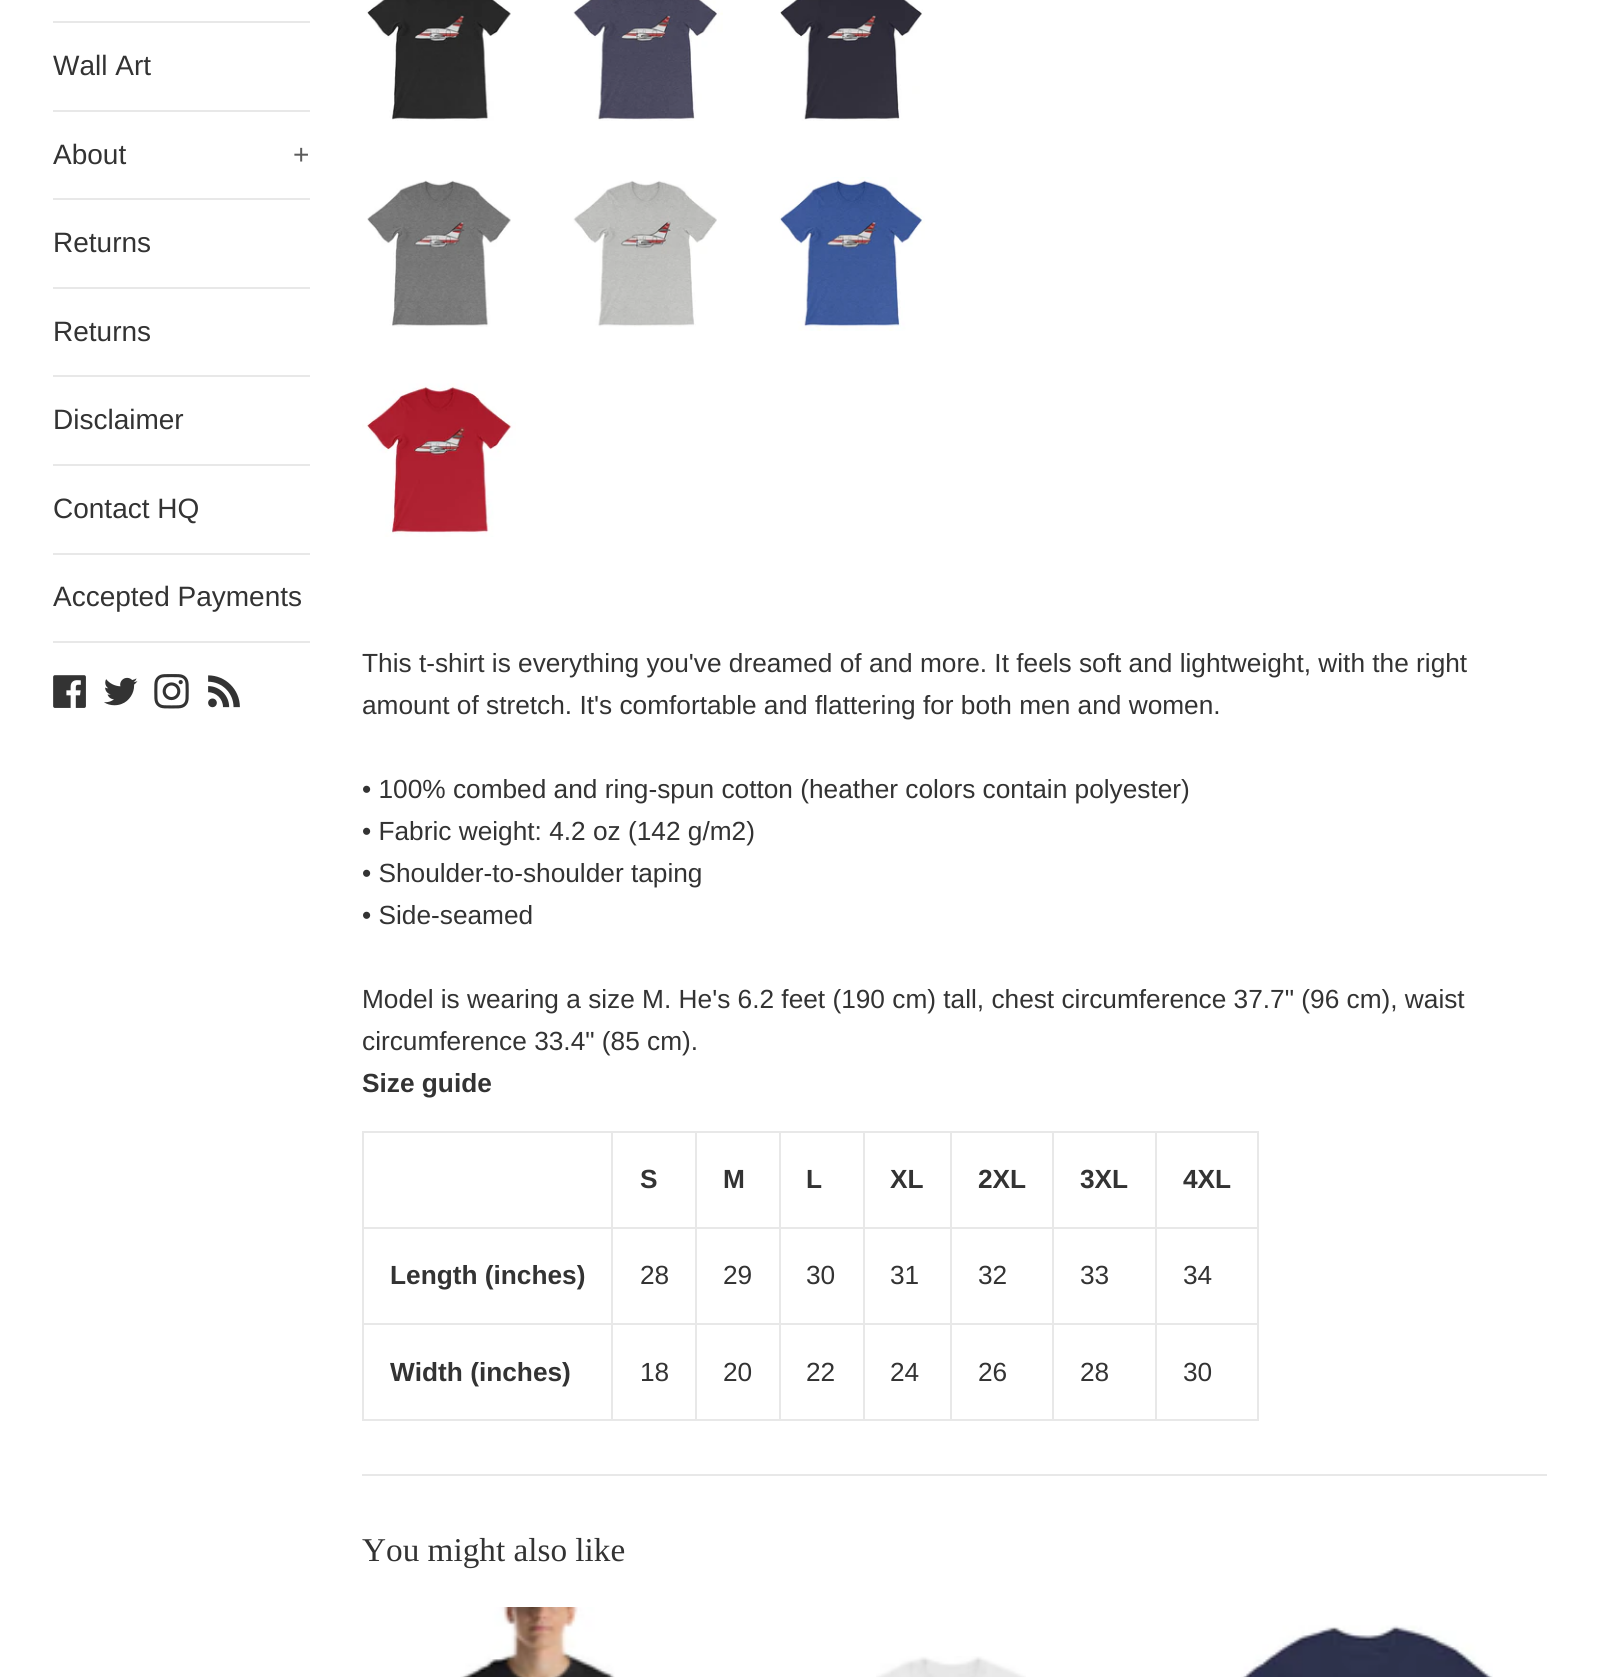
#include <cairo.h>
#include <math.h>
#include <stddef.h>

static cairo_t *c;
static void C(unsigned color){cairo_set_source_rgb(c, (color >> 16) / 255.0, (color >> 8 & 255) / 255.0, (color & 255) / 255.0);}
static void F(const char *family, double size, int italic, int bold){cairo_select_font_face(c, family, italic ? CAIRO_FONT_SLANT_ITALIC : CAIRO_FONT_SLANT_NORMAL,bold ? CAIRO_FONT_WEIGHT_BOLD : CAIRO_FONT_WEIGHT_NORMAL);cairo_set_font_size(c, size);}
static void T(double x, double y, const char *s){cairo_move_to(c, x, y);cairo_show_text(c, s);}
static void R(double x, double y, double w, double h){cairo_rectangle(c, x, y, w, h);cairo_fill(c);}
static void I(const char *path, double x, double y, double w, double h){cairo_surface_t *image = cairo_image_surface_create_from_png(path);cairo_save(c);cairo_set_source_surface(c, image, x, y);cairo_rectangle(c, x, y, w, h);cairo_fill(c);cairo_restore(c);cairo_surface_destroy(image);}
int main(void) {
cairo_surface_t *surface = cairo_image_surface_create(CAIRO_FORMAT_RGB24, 1598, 1677);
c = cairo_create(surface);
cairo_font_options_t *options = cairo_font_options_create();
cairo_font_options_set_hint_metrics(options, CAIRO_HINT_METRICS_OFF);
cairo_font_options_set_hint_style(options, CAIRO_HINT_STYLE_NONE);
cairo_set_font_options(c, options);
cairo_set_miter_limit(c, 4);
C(0xffffff);
cairo_paint(c);
C(0xe8e8e8);
R(53,21,257,2);
R(53,110,257,2);
F("Liberation Sans",28,0,0);
C(0x333333);
T(53,75,"Wall Art");
C(0xe8e8e8);
R(53,198,257,2);
C(0x333333);
T(53,164,"About");
C(0x5c5c5c);
T(293,164,"+");
C(0xe8e8e8);
R(53,287,257,2);
C(0x333333);
T(53,252,"Returns");
C(0xe8e8e8);
R(53,375,257,2);
C(0x333333);
T(53,341,"Returns");
C(0xe8e8e8);
R(53,464,257,2);
C(0x333333);
T(53,429,"Disclaimer");
C(0xe8e8e8);
R(53,553,257,2);
C(0x333333);
T(53,518,"Contact HQ");
C(0xe8e8e8);
R(53,641,257,2);
C(0x333333);
T(53,606,"Accepted Payments");
I("1.png",53,675,33,33);
I("2.png",104,677,34,29);
I("3.png",154,674,35,35);
I("4.png",208,675,32,33);
I("5.png",366,0,145,121);
I("6.png",573,0,150,121);
I("7.png",780,0,143,121);
I("8.png",367,180,144,147);
I("9.png",573,180,144,147);
I("10.png",779,177,146,154);
I("11.png",362,383,154,154);
F("Liberation Sans",26.25,0,0);
T(362,672,"This t-shirt is everything you've dreamed of and more. It feels soft and lightweight, with the right");
T(362,714,"amount of stretch. It's comfortable and flattering for both men and women.");
T(362,798,"• 100% combed and ring-spun cotton (heather colors contain polyester)");
T(362,840,"• Fabric weight: 4.2 oz (142 g/m2)");
T(362,882,"• Shoulder-to-shoulder taping");
T(362,924,"• Side-seamed");
T(362,1008,"Model is wearing a size M. He's 6.2 feet (190 cm) tall, chest circumference 37.7\" (96 cm), waist");
T(362,1050,"circumference 33.4\" (85 cm).");
F("Liberation Sans",26.25,0,1);
T(362,1092,"Size guide");
C(0xe8e8e8);
R(362,1131,896,2);
R(1257,1131,2,290);
R(362,1419,896,2);
R(362,1131,2,290);
R(1155,1227,103,2);
R(1155,1323,103,2);
R(1155,1323,2,98);
R(1052,1323,105,2);
R(1155,1227,2,98);
R(1052,1227,105,2);
R(1052,1323,2,98);
R(950,1323,104,2);
R(1052,1227,2,98);
R(950,1227,104,2);
R(950,1323,2,98);
R(863,1323,89,2);
R(950,1227,2,98);
R(863,1227,89,2);
R(863,1323,2,98);
R(779,1323,86,2);
R(863,1227,2,98);
R(779,1227,86,2);
R(779,1323,2,98);
R(695,1323,86,2);
R(779,1227,2,98);
R(695,1227,86,2);
R(695,1323,2,98);
R(611,1323,86,2);
R(695,1227,2,98);
R(611,1227,86,2);
R(611,1323,2,98);
R(362,1323,251,2);
R(611,1227,2,98);
R(362,1227,251,2);
R(611,1131,2,98);
C(0x333333);
T(640,1188,"S");
C(0xe8e8e8);
R(695,1131,2,98);
C(0x333333);
T(723,1188,"M");
C(0xe8e8e8);
R(779,1131,2,98);
C(0x333333);
T(806,1188,"L");
C(0xe8e8e8);
R(863,1131,2,98);
C(0x333333);
T(890,1188,"XL");
C(0xe8e8e8);
R(950,1131,2,98);
C(0x333333);
T(978,1188,"2XL");
C(0xe8e8e8);
R(1052,1131,2,98);
C(0x333333);
T(1080,1188,"3XL");
C(0xe8e8e8);
R(1155,1131,2,98);
C(0x333333);
T(1183,1188,"4XL");
T(390,1284,"Length (inches)");
F("Liberation Sans",26.25,0,0);
T(640,1284,"28");
T(723,1284,"29");
T(806,1284,"30");
T(890,1284,"31");
T(978,1284,"32");
T(1080,1284,"33");
T(1183,1284,"34");
F("Liberation Sans",26.25,0,1);
T(390,1381,"Width (inches)");
F("Liberation Sans",26.25,0,0);
T(640,1381,"18");
T(723,1381,"20");
T(806,1381,"22");
T(890,1381,"24");
T(978,1381,"26");
T(1080,1381,"28");
T(1183,1381,"30");
C(0xe8e8e8);
R(362,1474,1185,2);
F("Liberation Serif",33.25,0,0);
C(0x333333);
T(362,1561,"You might also like");
I("12.png",460,1607,155,70);
I("13.png",876,1656,150,21);
I("14.png",1241,1625,252,52);
cairo_surface_write_to_png(surface, "o.png");
cairo_font_options_destroy(options);
cairo_destroy(c);
cairo_surface_destroy(surface);
return 0;
}
